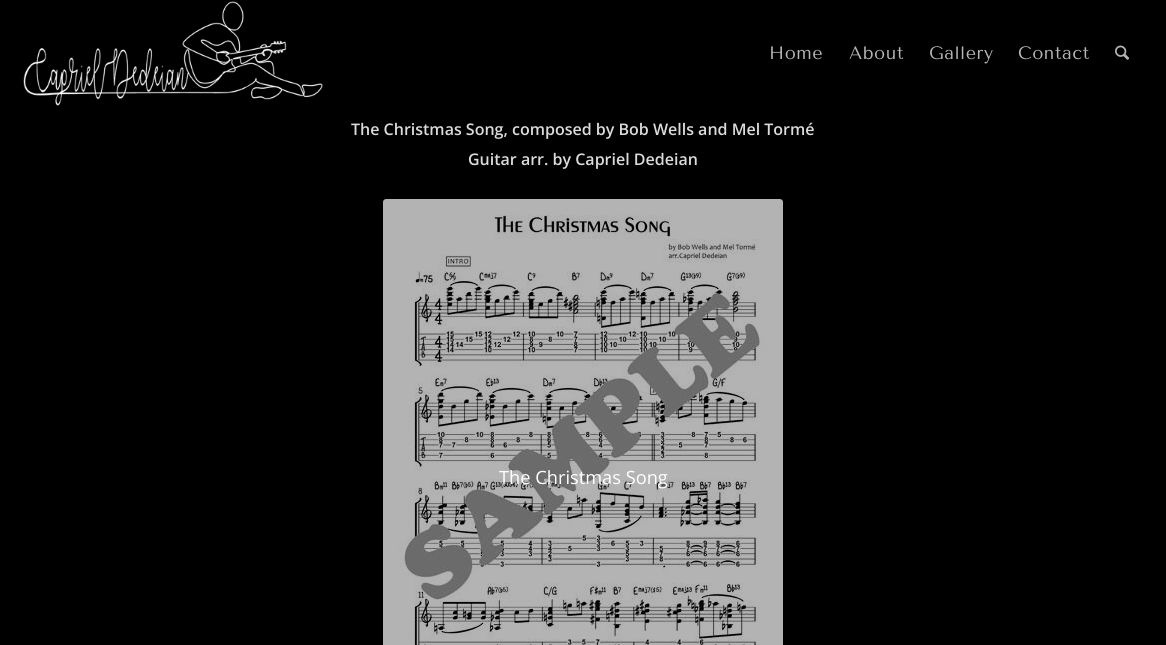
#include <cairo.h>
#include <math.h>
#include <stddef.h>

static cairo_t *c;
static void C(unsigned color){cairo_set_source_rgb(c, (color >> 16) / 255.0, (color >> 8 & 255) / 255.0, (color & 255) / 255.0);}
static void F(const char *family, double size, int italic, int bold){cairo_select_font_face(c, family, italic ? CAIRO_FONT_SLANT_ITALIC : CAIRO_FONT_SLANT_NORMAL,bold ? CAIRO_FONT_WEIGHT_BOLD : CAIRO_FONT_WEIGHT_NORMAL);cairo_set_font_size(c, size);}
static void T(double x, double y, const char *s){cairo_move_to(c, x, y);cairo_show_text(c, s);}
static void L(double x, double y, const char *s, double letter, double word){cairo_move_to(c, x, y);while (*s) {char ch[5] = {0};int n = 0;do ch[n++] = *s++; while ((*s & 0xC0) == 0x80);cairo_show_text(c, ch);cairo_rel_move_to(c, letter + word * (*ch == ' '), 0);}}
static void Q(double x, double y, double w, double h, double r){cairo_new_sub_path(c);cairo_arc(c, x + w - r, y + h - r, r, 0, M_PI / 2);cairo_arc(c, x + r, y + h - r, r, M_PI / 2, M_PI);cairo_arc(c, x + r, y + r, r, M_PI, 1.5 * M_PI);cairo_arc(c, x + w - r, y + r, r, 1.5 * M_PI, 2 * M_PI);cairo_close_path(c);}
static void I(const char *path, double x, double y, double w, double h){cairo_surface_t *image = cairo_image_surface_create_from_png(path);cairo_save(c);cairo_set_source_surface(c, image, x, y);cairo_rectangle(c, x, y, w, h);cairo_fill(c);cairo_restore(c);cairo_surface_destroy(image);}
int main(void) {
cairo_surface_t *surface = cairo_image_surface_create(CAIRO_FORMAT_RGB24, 1166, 645);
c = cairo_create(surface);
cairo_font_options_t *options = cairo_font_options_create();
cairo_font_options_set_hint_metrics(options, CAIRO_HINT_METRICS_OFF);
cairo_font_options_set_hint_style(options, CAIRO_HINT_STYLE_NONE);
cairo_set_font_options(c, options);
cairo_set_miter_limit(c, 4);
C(0x000000);
cairo_paint(c);
I("1.png",23,1,300,105);
F("Tenor Sans",18,0,0);
C(0xb5b5b5);
L(769,59,"Home",.5,0);
L(849,59,"About",.5,0);
L(929,59,"Gallery",.5,0);
L(1018,59,"Contact",.5,0);
I("2.png",1115,45,15,15);
F("Open Sans SemiBold",16,0,0);
C(0xdbdbdb);
T(351,135,"The Christmas Song, composed by Bob Wells and Mel Tormé");
T(468,165,"Guitar arr. by Capriel Dedeian");
I("3.png",383,199,400,446);
cairo_set_source_rgba(c,0,0,0,0.3);
Q(383,199,400,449,3);
cairo_fill(c);
F("Open Sans",18.25,0,0);
C(0xffffff);
T(499,484,"The Christmas Song");
cairo_surface_write_to_png(surface, "o.png");
cairo_font_options_destroy(options);
cairo_destroy(c);
cairo_surface_destroy(surface);
return 0;
}
